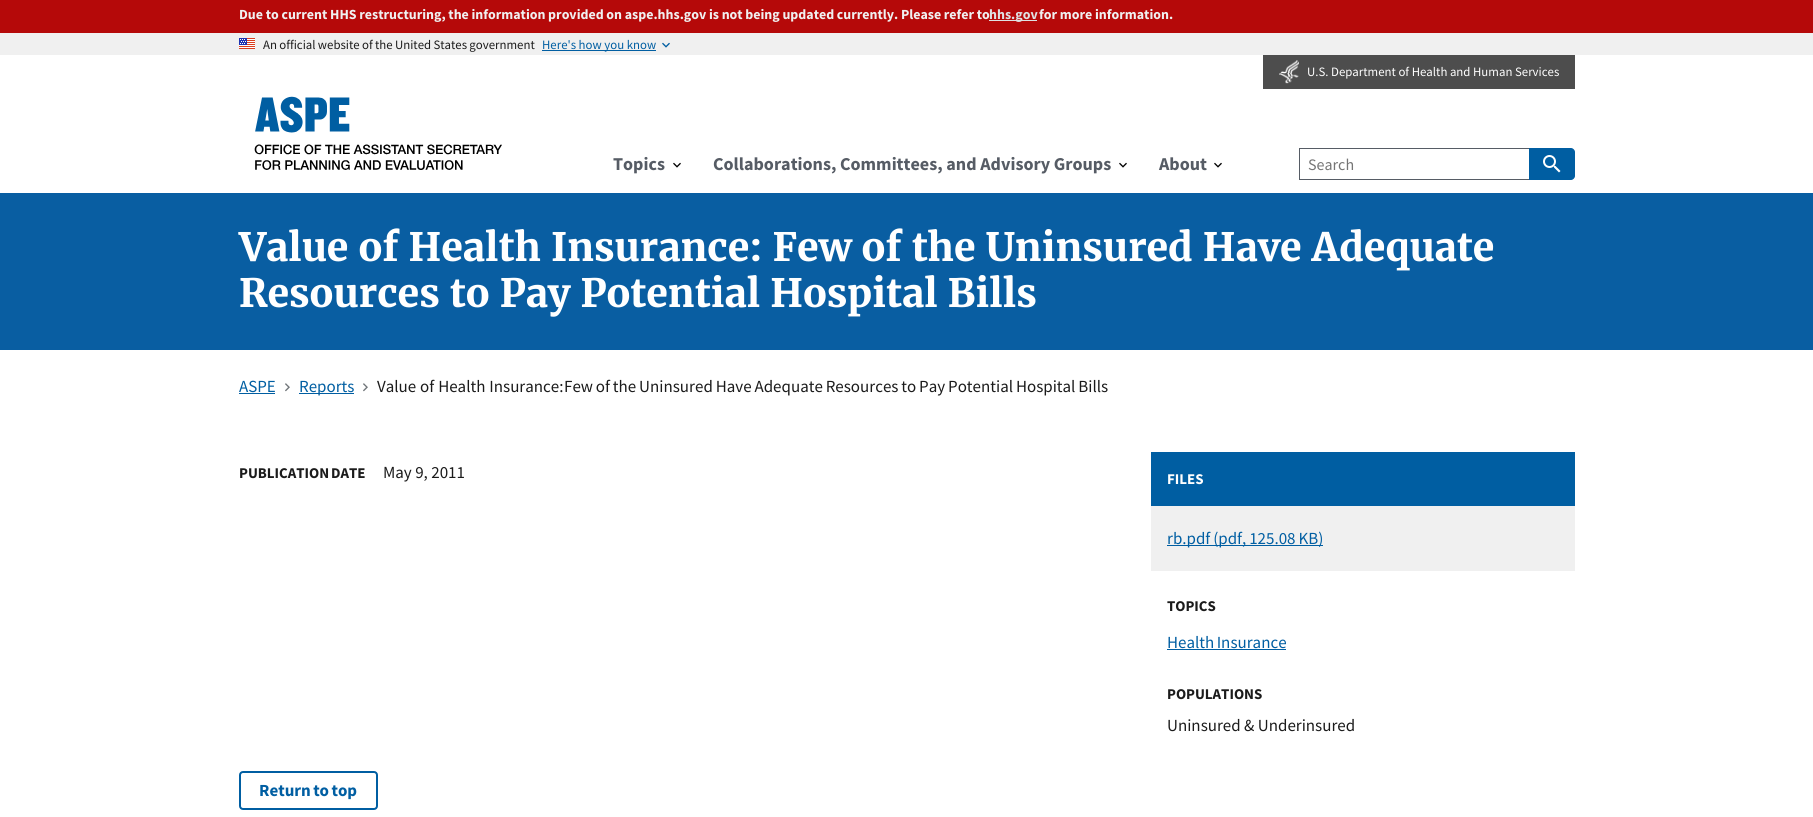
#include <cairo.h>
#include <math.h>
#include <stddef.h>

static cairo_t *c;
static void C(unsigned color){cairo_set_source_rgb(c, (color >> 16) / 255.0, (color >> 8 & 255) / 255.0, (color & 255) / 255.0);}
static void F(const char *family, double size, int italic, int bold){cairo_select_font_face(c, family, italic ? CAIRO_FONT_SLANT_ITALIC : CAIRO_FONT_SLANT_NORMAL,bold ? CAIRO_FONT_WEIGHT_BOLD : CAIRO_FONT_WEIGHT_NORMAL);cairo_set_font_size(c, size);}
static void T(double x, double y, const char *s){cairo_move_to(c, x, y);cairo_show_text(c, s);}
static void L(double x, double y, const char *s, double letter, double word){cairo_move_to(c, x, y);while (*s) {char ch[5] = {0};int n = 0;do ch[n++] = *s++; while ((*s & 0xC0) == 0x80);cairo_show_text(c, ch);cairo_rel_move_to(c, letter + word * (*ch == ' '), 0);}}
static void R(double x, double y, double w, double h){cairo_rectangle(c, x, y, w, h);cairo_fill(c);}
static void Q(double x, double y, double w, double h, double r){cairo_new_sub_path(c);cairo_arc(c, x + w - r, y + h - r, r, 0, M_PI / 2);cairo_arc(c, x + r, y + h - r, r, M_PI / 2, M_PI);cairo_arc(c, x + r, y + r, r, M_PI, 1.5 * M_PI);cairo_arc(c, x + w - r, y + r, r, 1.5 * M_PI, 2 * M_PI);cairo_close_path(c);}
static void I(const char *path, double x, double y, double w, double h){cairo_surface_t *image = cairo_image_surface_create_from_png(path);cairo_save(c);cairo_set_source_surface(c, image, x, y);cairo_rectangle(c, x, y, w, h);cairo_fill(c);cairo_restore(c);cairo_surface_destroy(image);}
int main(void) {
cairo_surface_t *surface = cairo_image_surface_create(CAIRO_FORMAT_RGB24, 1813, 817);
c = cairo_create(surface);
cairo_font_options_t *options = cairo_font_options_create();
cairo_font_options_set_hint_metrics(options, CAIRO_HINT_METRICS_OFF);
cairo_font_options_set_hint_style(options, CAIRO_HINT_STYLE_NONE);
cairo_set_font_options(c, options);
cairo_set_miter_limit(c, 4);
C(0xffffff);
cairo_paint(c);
C(0xf0f0f0);
R(0,33,1813,22);
C(0xb50909);
R(0,0,1813,33);
F("Source Sans Pro",13.92,0,1);
C(0xf0f0f0);
L(239,19,"Due to current HHS restructuring, the information provided on aspe.hhs.gov is not being updated currently. Please refer to",0,-.1);
C(0xdfe1e2);
R(989,20,48,1);
T(989,19,"hhs.gov");
C(0xf0f0f0);
T(1039,19,"for more information.");
I("1.png",239,38,16,11);
F("Source Sans Pro",12.8,0,0);
C(0x1b1b1b);
L(263,49,"An official website of the United States government",0,-.25);
C(0x005ea2);
R(542,50,114,1);
T(542,49,"Here's how you know");
I("2.png",662,42,8,6);
C(0x4d4d4d);
R(1263,55,312,34);
I("3.png",1279,60,20,24);
C(0xffffff);
T(1307,76,"U.S. Department of Health and Human Services");
I("4.png",254,96,248,74);
I("5.png",673,162,8,6);
F("Source Sans Pro",18.1,0,1);
C(0x565c65);
T(613,170,"Topics");
I("5.png",1119,162,8,6);
T(713,170,"Collaborations, Committees, and Advisory Groups");
I("5.png",1214,162,8,6);
T(1159,170,"About");
R(1299,148,230,1);
R(1299,179,230,1);
R(1299,148,1,32);
F("Source Sans Pro",16,0,0);
C(0x757575);
T(1308,170,"Search");
C(0x005ea2);
cairo_new_path(c);
cairo_move_to(c,1529,148);
cairo_line_to(c,1571,148);
cairo_curve_to(c,1573,148,1575,150,1575,152);
cairo_line_to(c,1575,176);
cairo_curve_to(c,1575,178,1573,180,1571,180);
cairo_line_to(c,1529,180);
cairo_close_path(c);
cairo_fill(c);
I("6.png",1543,155,18,18);
C(0x095ea2);
R(0,193,1813,157);
F("Merriweather",39.05,0,1);
C(0xffffff);
T(239,261,"Value of Health Insurance: Few of the Uninsured Have Adequate");
T(239,307,"Resources to Pay Potential Hospital Bills");
F("Source Sans Pro",16.95,0,0);
C(0x005ea2);
T(239,392,"ASPE");
R(239,393,36,1);
I("7.png",285,383,5,9);
R(299,393,55,1);
T(299,392,"Reports");
I("7.png",363,383,5,9);
C(0x1b1b1b);
L(377,392,"Value of Health Insurance:",0,.5);
L(564,392,"Few of the Uninsured Have Adequate Resources to Pay Potential Hospital Bills",0,-.5);
F("Source Sans Pro",14.9,0,1);
L(239,478,"PUBLICATION DATE",0,-1);
F("Source Sans Pro",16.95,0,0);
T(383,478,"May 9, 2011");
C(0xf0f0f0);
R(1151,506,424,65);
C(0x005ea2);
R(1151,452,424,54);
F("Source Sans Pro",14.9,0,1);
C(0xffffff);
T(1167,484,"FILES");
C(0x005ea2);
R(1167,545,156,1);
F("Source Sans Pro",16.95,0,0);
L(1167,544,"rb.pdf (pdf, 125.08 KB)",0,-.5);
F("Source Sans Pro",14.9,0,1);
C(0x1b1b1b);
T(1167,611,"TOPICS");
F("Source Sans Pro",16.95,0,0);
C(0x005ea2);
L(1167,648,"Health Insurance",0,-1);
R(1167,649,119,1);
F("Source Sans Pro",14.9,0,1);
C(0x1b1b1b);
T(1167,699,"POPULATIONS");
F("Source Sans Pro",16.95,0,0);
T(1167,731,"Uninsured & Underinsured");
Q(240,772,137,37,3);
C(0x005ea2);
cairo_stroke(c);
F("Source Sans Pro",16.95,0,1);
L(259,796,"Return to top",0,-1);
cairo_surface_write_to_png(surface, "o.png");
cairo_font_options_destroy(options);
cairo_destroy(c);
cairo_surface_destroy(surface);
return 0;
}
